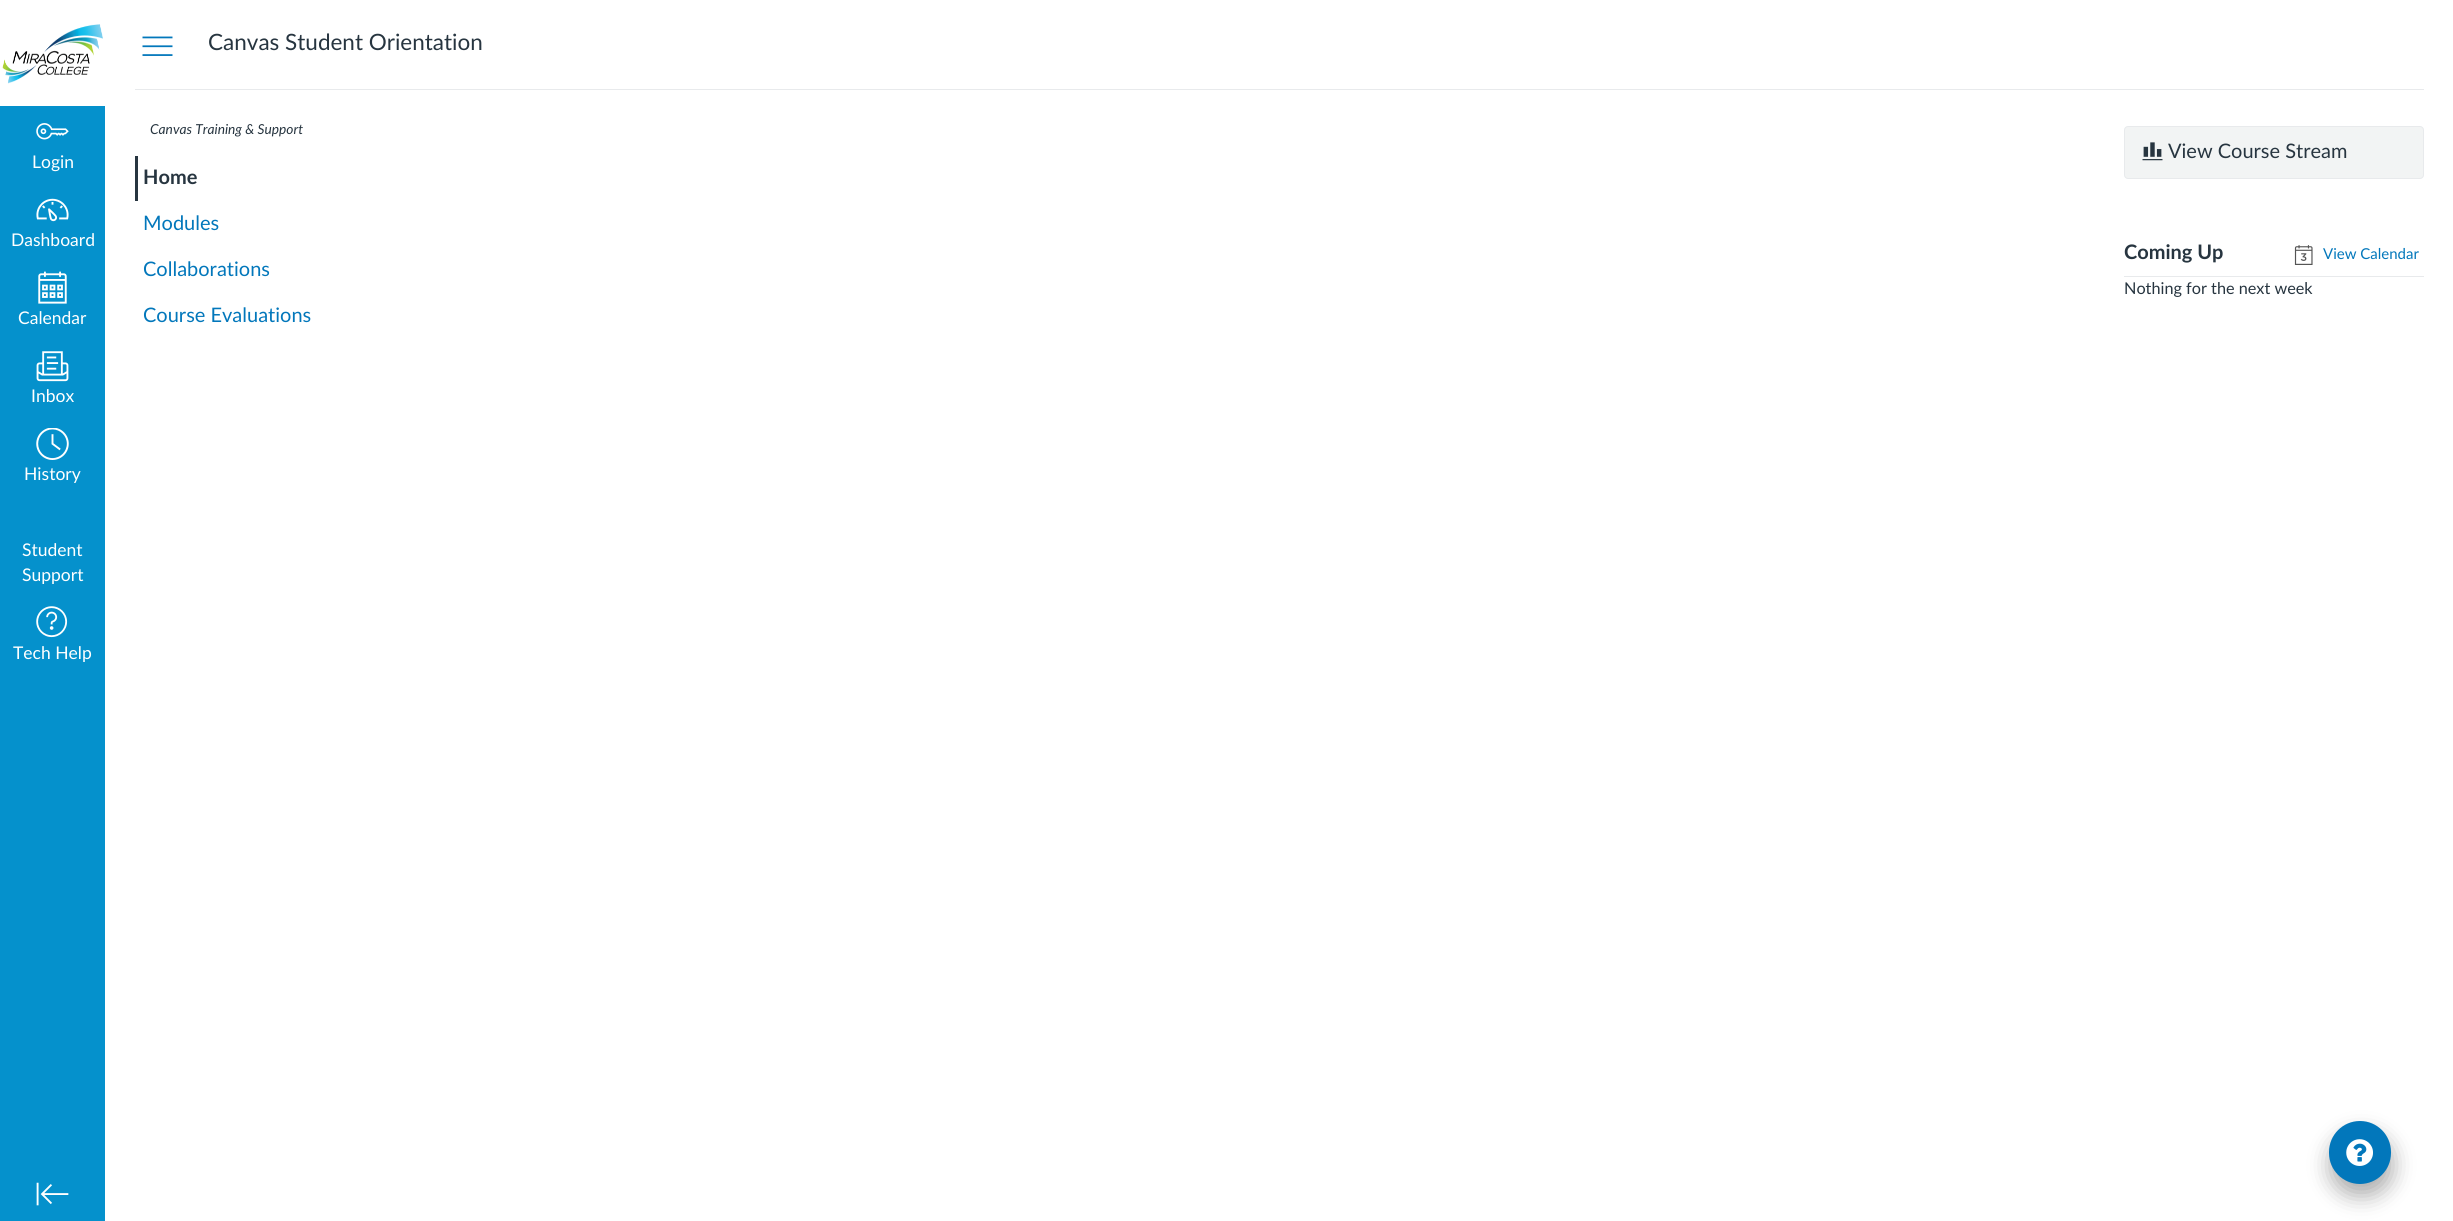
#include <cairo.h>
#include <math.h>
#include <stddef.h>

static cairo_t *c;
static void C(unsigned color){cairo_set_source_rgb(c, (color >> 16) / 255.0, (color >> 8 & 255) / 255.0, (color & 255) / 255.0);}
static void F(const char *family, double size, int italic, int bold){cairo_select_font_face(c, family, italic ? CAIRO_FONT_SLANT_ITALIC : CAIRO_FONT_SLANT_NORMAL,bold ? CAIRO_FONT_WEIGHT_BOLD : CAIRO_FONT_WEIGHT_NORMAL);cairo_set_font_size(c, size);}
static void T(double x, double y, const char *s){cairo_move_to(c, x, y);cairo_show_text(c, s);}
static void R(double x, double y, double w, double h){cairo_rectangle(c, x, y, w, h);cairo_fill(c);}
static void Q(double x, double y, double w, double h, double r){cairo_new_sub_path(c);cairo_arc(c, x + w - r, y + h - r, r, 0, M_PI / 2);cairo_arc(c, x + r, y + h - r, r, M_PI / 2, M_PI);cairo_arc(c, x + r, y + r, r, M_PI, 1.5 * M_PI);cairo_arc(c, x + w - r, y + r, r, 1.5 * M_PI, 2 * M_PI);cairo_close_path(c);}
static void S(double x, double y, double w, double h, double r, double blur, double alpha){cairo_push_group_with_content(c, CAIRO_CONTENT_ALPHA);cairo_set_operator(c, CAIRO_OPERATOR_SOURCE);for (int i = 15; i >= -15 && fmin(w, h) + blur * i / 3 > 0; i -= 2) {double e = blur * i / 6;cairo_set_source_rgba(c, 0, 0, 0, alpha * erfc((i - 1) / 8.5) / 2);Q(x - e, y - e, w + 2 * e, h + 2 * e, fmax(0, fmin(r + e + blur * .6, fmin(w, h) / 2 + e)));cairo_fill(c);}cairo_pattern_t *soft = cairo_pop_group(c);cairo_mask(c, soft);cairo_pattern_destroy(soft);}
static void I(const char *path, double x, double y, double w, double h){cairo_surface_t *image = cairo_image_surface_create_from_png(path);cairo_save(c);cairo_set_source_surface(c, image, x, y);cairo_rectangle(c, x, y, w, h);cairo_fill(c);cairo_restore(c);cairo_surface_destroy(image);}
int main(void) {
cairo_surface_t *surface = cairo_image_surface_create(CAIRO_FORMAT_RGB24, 2453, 1221);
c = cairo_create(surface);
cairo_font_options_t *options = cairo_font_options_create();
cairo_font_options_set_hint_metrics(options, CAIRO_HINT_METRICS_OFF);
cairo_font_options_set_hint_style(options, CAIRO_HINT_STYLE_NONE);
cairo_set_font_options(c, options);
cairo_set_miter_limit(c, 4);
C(0xffffff);
cairo_paint(c);
C(0x0591cc);
R(0,106,105,1115);
I("1.png",2,24,101,60);
I("2.png",36,123,33,17);
F("Lato",17.5,0,0);
C(0xffffff);
T(32,168,"Login");
I("3.png",36,198,33,24);
T(11,246,"Dashboard");
I("4.png",38,271,29,33);
T(18,324,"Calendar");
I("5.png",36,351,33,31);
T(31,402,"Inbox");
I("6.png",36,428,33,32);
T(24,480,"History");
T(22,556,"Student");
T(22,581,"Support");
I("7.png",36,606,32,32);
T(13,659,"Tech Help");
I("8.png",36,1182,33,24);
C(0xe8eaec);
R(135,89,2289,1);
I("9.png",142,36,31,20);
F("Lato",22.5,0,0);
C(0x273540);
T(208,50,"Canvas Student Orientation");
F("Lato",13.75,1,0);
T(150,134,"Canvas Training & Support");
R(135,156,3,45);
F("Lato",20,0,1);
T(143,184,"Home");
F("Lato",20,0,0);
C(0x0277bb);
T(143,230,"Modules");
T(143,276,"Collaborations");
T(143,322,"Course Evaluations");
C(0xf2f4f4);
Q(2124.5,126.5,299,52,3.5);
cairo_fill_preserve(c);
C(0xe8eaec);
cairo_set_line_width(c,1);
cairo_stroke(c);
I("10.png",2142,142,21,19);
C(0x273540);
T(2168,158,"View Course Stream");
C(0xe8eaec);
R(2124,276,300,1);
F("Lato",20,0,1);
C(0x273540);
T(2124,259,"Coming Up");
I("11.png",2294,245,19,20);
F("Lato",15,0,0);
C(0x0277bb);
T(2323,259,"View Calendar");
F("Lato",16.25,0,0);
C(0x273540);
T(2124,294,"Nothing for the next week");
C(0x000000);
S(2330,1134,63,62,31,11,.32);
C(0x0277bb);
Q(2329,1121,62,63,31);
cairo_fill(c);
I("12.png",2346,1139,27,27);
cairo_surface_write_to_png(surface, "o.png");
cairo_font_options_destroy(options);
cairo_destroy(c);
cairo_surface_destroy(surface);
return 0;
}
